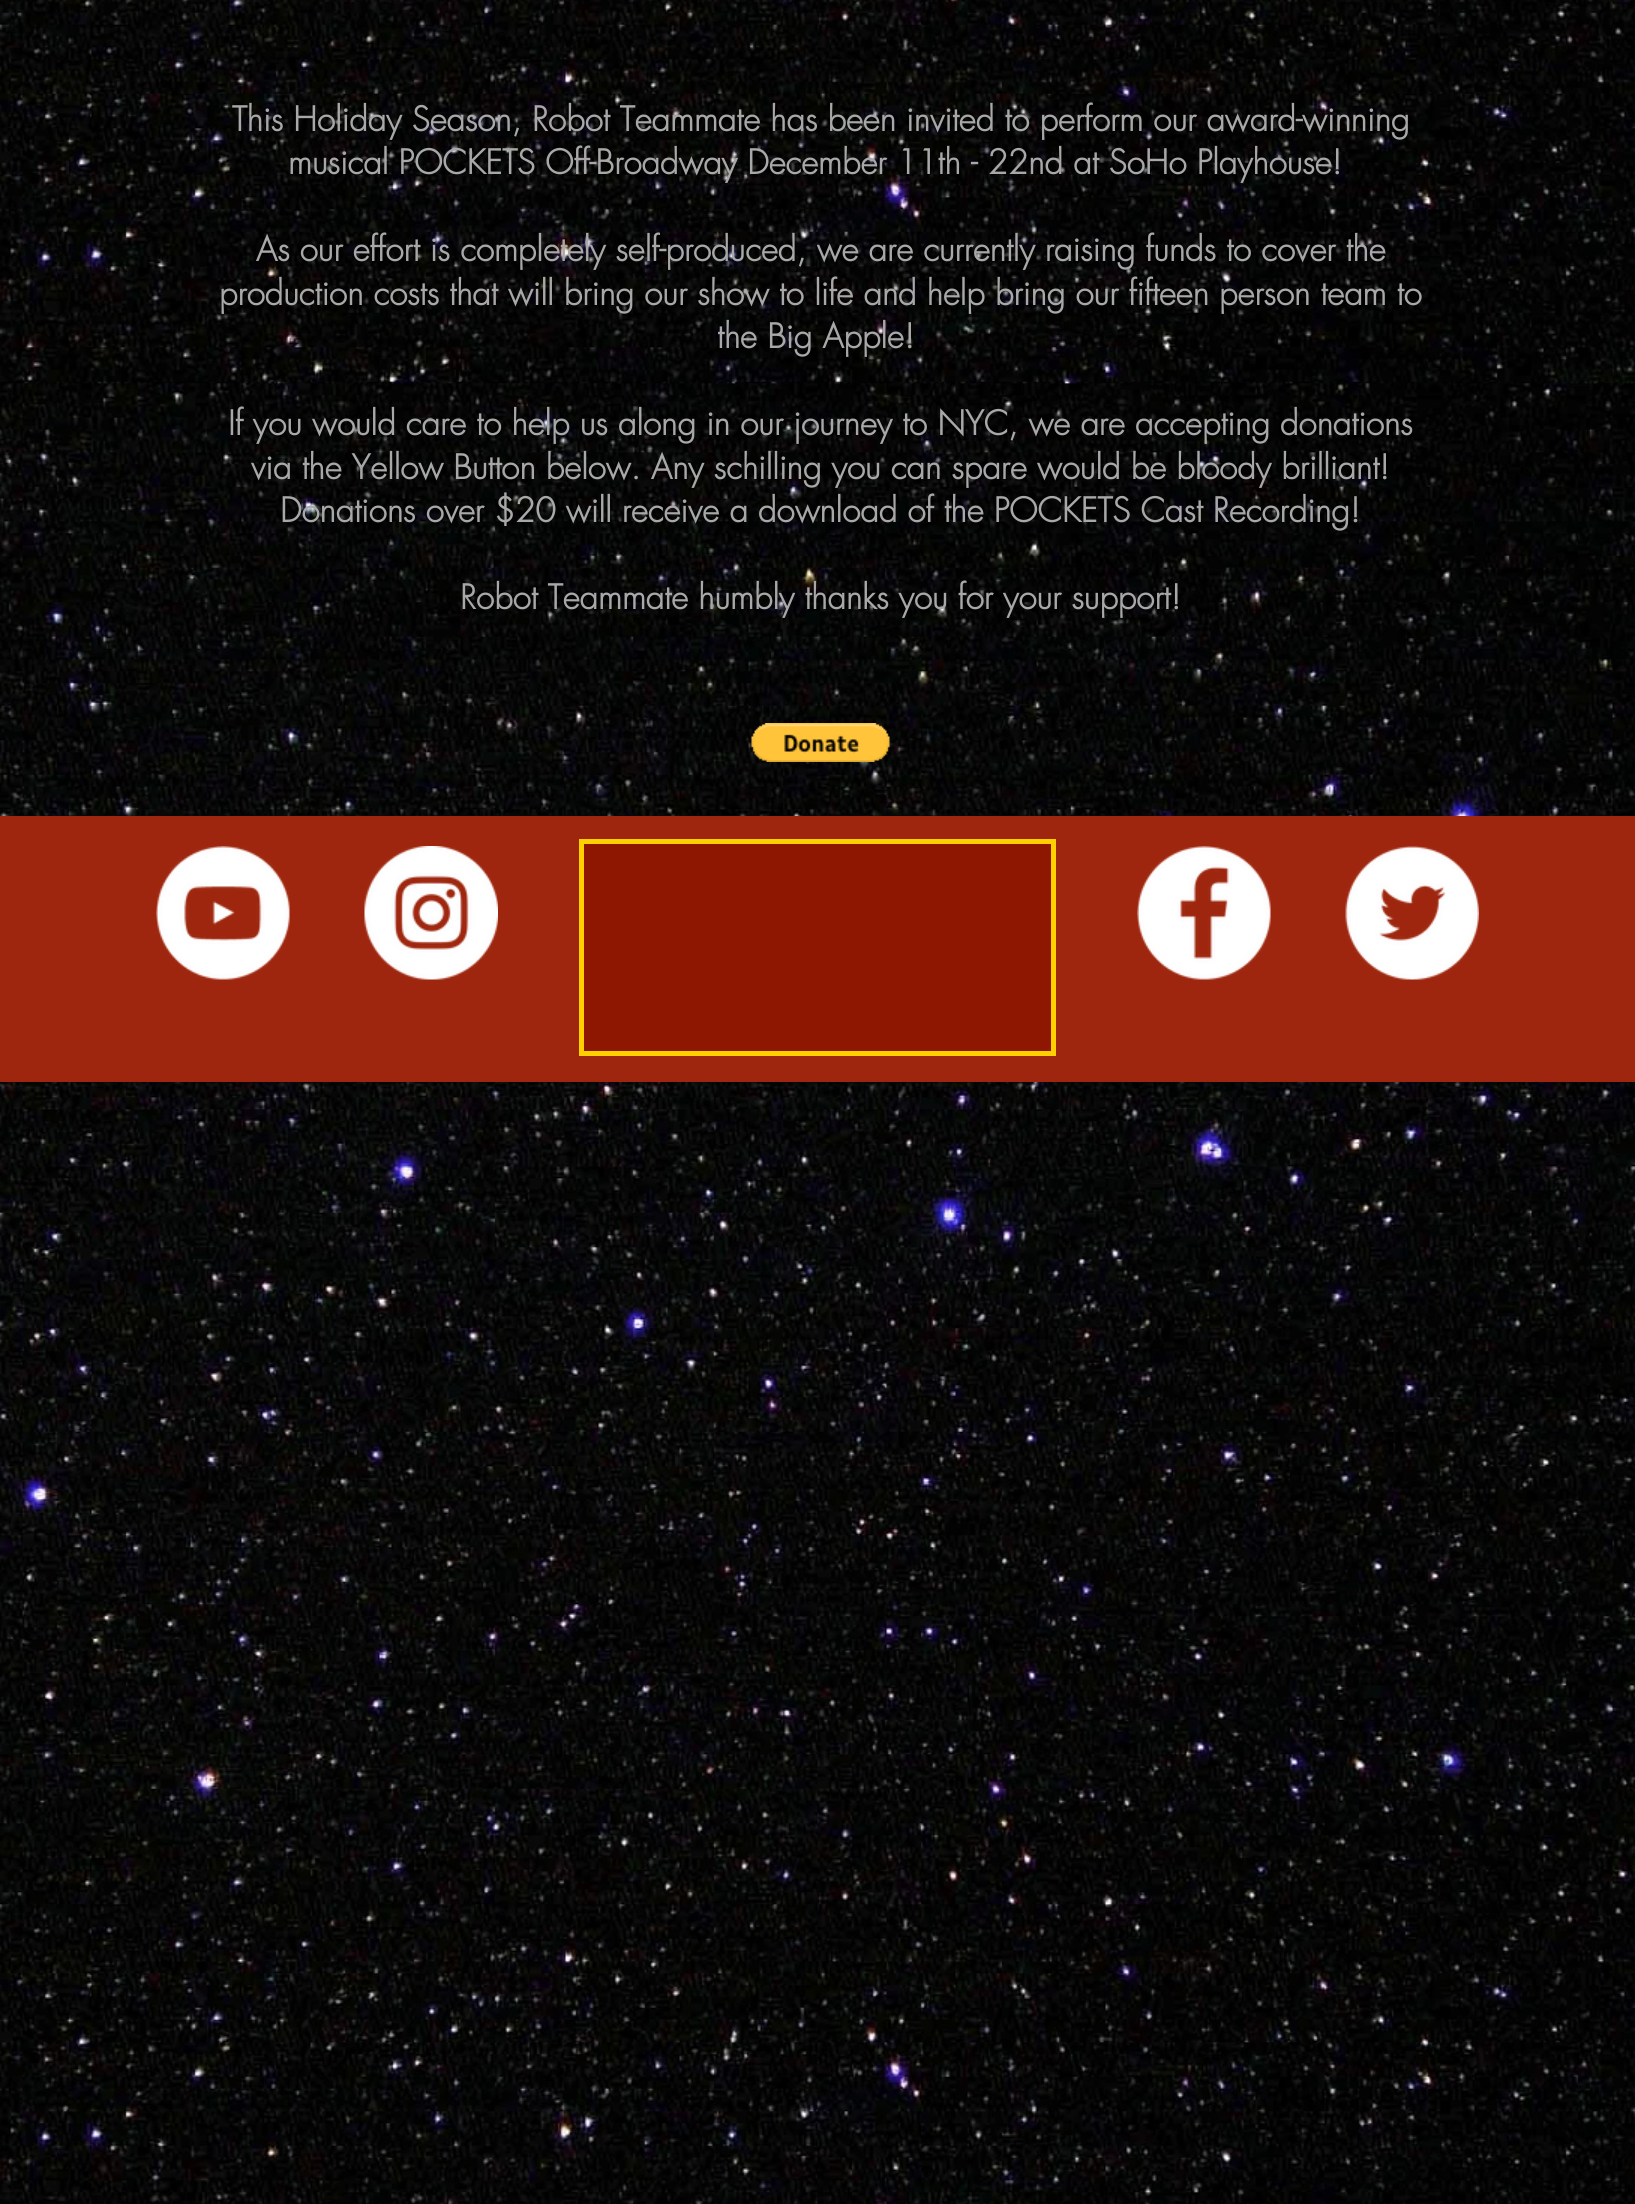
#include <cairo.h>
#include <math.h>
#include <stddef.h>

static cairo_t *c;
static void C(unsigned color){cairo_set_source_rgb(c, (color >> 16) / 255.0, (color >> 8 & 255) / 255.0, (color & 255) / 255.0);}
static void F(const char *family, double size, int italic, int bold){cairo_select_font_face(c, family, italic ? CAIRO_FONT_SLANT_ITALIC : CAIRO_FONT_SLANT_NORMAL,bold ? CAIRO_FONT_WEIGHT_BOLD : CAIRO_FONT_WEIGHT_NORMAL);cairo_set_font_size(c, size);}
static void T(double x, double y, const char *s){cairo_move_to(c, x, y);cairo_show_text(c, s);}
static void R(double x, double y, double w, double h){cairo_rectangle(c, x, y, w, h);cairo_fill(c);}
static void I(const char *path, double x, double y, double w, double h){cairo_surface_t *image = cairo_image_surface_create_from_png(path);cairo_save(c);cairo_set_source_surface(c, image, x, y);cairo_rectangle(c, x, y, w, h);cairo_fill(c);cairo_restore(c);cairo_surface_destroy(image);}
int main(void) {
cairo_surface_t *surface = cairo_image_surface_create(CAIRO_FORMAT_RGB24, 1635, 2204);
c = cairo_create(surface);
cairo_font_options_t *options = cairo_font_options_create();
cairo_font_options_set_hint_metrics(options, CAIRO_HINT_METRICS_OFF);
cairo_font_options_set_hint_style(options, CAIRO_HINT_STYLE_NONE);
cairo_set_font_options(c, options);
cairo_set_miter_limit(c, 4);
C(0xffffff);
cairo_paint(c);
I("1.png",0,0,1635,2204);
F("futura",33,0,1);
C(0xa8a8a8);
T(232,131,"This Holiday Season, Robot Teammate has been invited to perform our award-winning");
T(288,174,"musical POCKETS Off-Broadway December 11th - 22nd at SoHo Playhouse!");
T(256,261,"As our effort is completely self-produced, we are currently raising funds to cover the");
T(219,305,"production costs that will bring our show to life and help bring our fifteen person team to");
T(717,348,"the Big Apple!");
T(228,435,"If you would care to help us along in our journey to NYC, we are accepting donations");
T(251,479,"via the Yellow Button below. Any schilling you can spare would be bloody brilliant!");
T(280,522,"Donations over $20 will receive a download of the POCKETS Cast Recording!");
T(460,609,"Robot Teammate humbly thanks you for your support!");
I("2.png",751,723,139,39);
C(0x9e260e);
R(0,816,1635,266);
I("3.png",156,846,134,134);
I("4.png",364,846,134,134);
C(0x8d1700);
cairo_rectangle(c,581.5,841.5,472,212);
cairo_fill_preserve(c);
C(0xffd000);
cairo_set_line_width(c,5);
cairo_stroke(c);
I("5.png",1137,846,134,134);
I("6.png",1345,846,134,134);
cairo_surface_write_to_png(surface, "o.png");
cairo_font_options_destroy(options);
cairo_destroy(c);
cairo_surface_destroy(surface);
return 0;
}
